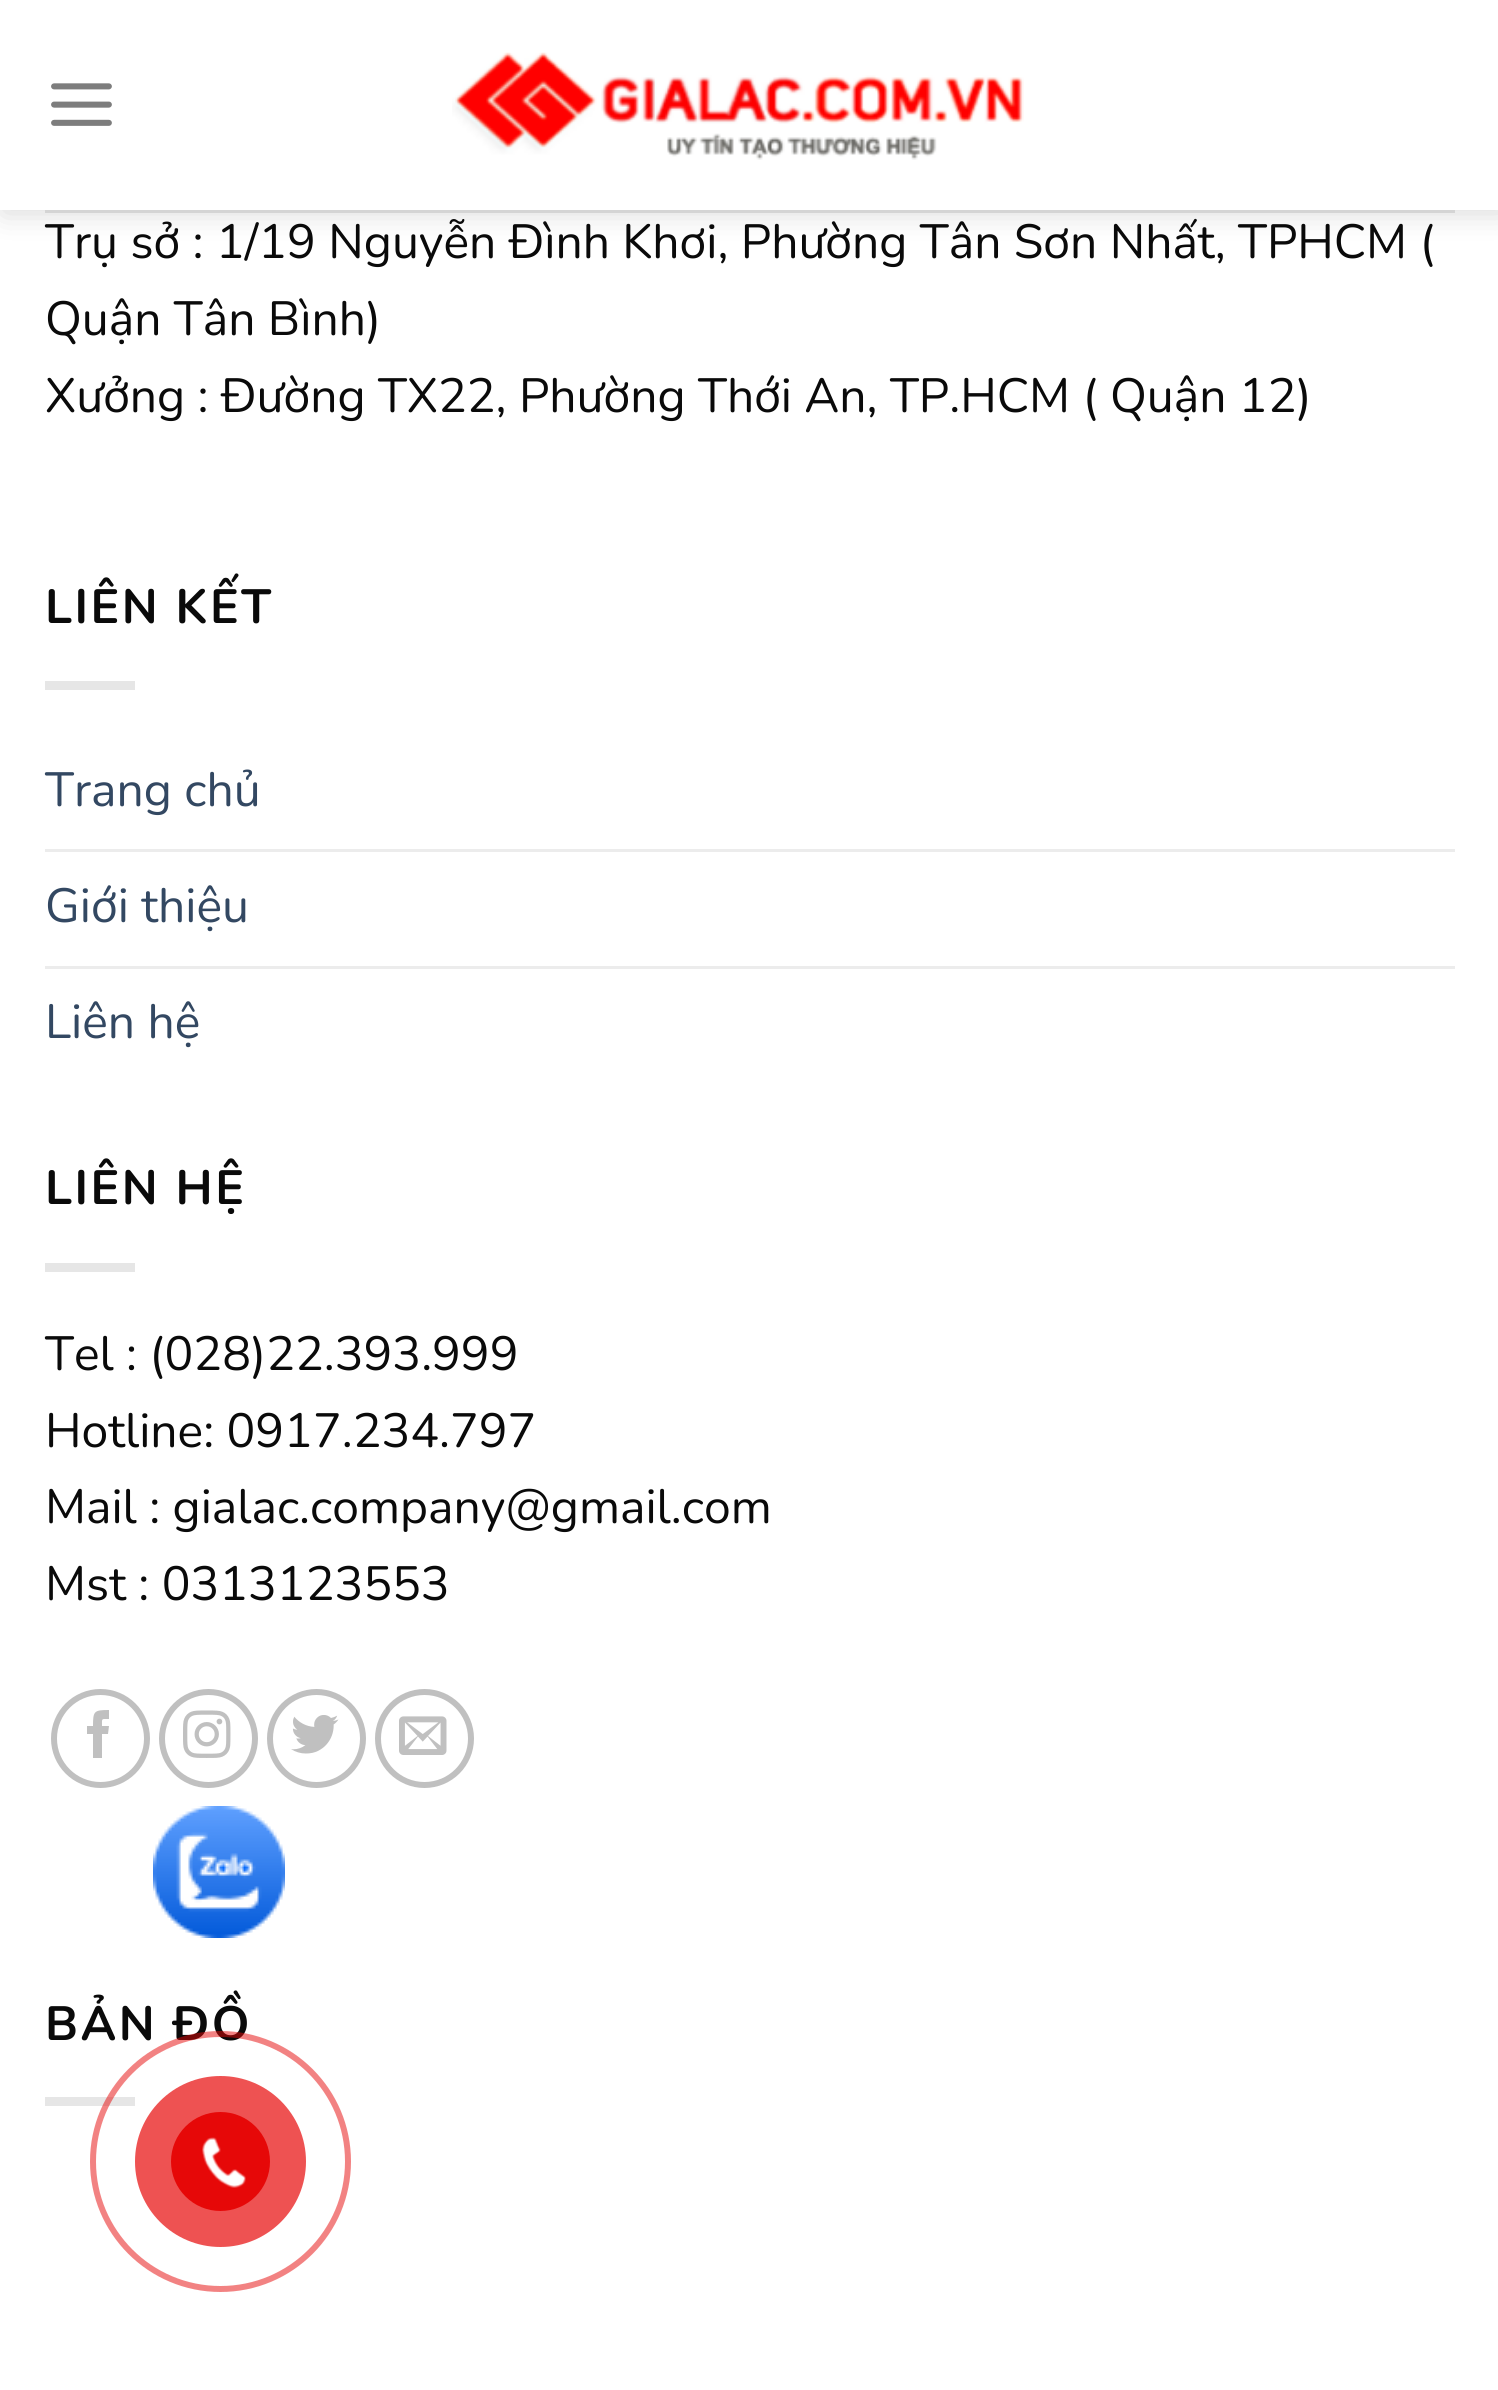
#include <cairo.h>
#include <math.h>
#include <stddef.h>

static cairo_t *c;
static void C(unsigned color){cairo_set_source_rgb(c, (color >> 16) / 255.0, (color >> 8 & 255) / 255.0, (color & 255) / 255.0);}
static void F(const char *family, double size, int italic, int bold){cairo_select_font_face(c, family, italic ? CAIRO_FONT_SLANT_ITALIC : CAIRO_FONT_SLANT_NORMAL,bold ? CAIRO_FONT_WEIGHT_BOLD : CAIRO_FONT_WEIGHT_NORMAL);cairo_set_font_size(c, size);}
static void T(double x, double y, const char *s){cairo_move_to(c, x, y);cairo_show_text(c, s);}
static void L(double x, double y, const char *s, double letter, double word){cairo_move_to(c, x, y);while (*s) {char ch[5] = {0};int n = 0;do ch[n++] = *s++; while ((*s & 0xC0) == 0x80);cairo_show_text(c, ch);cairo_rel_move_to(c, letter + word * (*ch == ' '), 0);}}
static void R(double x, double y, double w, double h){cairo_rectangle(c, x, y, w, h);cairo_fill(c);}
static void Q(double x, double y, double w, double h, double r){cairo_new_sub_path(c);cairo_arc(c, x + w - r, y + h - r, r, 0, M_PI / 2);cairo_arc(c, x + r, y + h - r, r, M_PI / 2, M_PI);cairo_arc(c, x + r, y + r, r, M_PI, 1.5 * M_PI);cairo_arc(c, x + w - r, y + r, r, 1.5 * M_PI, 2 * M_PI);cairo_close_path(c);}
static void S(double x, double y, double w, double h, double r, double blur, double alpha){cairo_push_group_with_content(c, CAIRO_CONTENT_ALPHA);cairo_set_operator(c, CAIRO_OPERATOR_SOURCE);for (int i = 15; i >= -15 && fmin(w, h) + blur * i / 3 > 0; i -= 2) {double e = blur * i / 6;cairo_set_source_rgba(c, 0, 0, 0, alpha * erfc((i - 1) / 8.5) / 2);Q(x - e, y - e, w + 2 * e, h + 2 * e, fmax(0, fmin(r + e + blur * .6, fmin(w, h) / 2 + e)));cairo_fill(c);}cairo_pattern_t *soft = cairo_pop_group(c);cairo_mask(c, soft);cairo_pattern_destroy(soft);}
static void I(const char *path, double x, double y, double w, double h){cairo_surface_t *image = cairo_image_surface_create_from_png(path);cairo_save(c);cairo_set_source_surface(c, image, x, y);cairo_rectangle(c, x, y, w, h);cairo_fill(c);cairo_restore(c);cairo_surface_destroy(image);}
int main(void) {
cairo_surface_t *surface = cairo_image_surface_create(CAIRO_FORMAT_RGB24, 1498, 2390);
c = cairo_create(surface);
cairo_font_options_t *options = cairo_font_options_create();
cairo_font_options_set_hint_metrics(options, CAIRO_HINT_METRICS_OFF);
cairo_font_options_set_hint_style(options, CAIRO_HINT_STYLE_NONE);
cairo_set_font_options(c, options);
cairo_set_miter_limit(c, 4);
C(0xffffff);
cairo_paint(c);
C(0x000000);
S(3,3,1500,210,0,15,.15);
C(0xffffff);
R(0,0,1498,210);
I("1.png",51,83,61,43);
I("2.png",452,52,572,108);
C(0xd4d4d4);
R(45,210,1410,3);
F("Nunito",48,0,0);
C(0x0a0a0a);
T(45,258,"Trụ sở : 1/19 Nguyễn Đình Khơi, Phường Tân Sơn Nhất, TPHCM (");
T(45,335,"Quận Tân Bình)");
T(45,412,"Xưởng : Đường TX22, Phường Thới An, TP.HCM ( Quận 12)");
F("Nunito",48,0,1);
L(45,623,"LIÊN KẾT",2.5,0);
C(0xe6e6e6);
R(45,681,90,9);
F("Nunito",48,0,0);
C(0x334862);
T(45,806,"Trang chủ");
C(0xececec);
R(45,849,1410,3);
C(0x334862);
T(45,922,"Giới thiệu");
C(0xececec);
R(45,966,1410,3);
C(0x334862);
T(45,1038,"Liên hệ");
F("Nunito",48,0,1);
C(0x0a0a0a);
L(45,1204,"LIÊN HỆ",2.5,0);
C(0xe6e6e6);
R(45,1263,90,9);
F("Nunito",48,0,0);
C(0x0a0a0a);
T(45,1370,"Tel : (028)22.393.999");
T(45,1447,"Hotline: 0917.234.797");
T(45,1523,"Mail : gialac.company@gmail.com");
T(45,1600,"Mst : 0313123553");
cairo_new_path(c);
cairo_arc(c,100.5,1738.5,46.5,0,2 * M_PI);
C(0xc0c0c0);
cairo_set_line_width(c,6);
cairo_stroke(c);
cairo_new_path(c);
cairo_move_to(c,102,1758);
cairo_line_to(c,93,1758);
cairo_line_to(c,93,1734);
cairo_line_to(c,87,1734);
cairo_line_to(c,87,1726);
cairo_line_to(c,93,1726);
cairo_curve_to(c,93,1711,94,1710,109,1710);
cairo_line_to(c,109,1719);
cairo_curve_to(c,101,1719,102,1718,102,1726);
cairo_line_to(c,109,1726);
cairo_line_to(c,108,1734);
cairo_line_to(c,102,1734);
cairo_close_path(c);
cairo_fill(c);
cairo_arc(c,208.5,1738.5,46.5,0,2 * M_PI);
cairo_stroke(c);
I("3.png",183,1710,48,48);
cairo_arc(c,316.5,1738.5,46.5,0,2 * M_PI);
cairo_stroke(c);
I("4.png",291,1715,48,39);
cairo_arc(c,424.5,1738.5,46.5,0,2 * M_PI);
cairo_stroke(c);
I("5.png",399,1716,48,39);
F("Nunito",48,0,1);
C(0x0a0a0a);
L(45,2040,"BẢN ĐỒ",2.5,0);
C(0xe6e6e6);
R(45,2097,90,9);
I("6.png",153,1806,132,132);
cairo_arc(c,220.5,2161.5,127.5,0,2 * M_PI);
cairo_set_source_rgba(c,0.902,0.031,0.031,0.5);
cairo_stroke(c);
C(0xee5252);
cairo_arc(c,220.5,2161.5,85.5,0,2 * M_PI);
cairo_fill(c);
C(0xe60808);
cairo_arc(c,220.5,2161.5,49.5,0,2 * M_PI);
cairo_fill(c);
I("7.png",202,2137,44,51);
cairo_surface_write_to_png(surface, "o.png");
cairo_font_options_destroy(options);
cairo_destroy(c);
cairo_surface_destroy(surface);
return 0;
}
